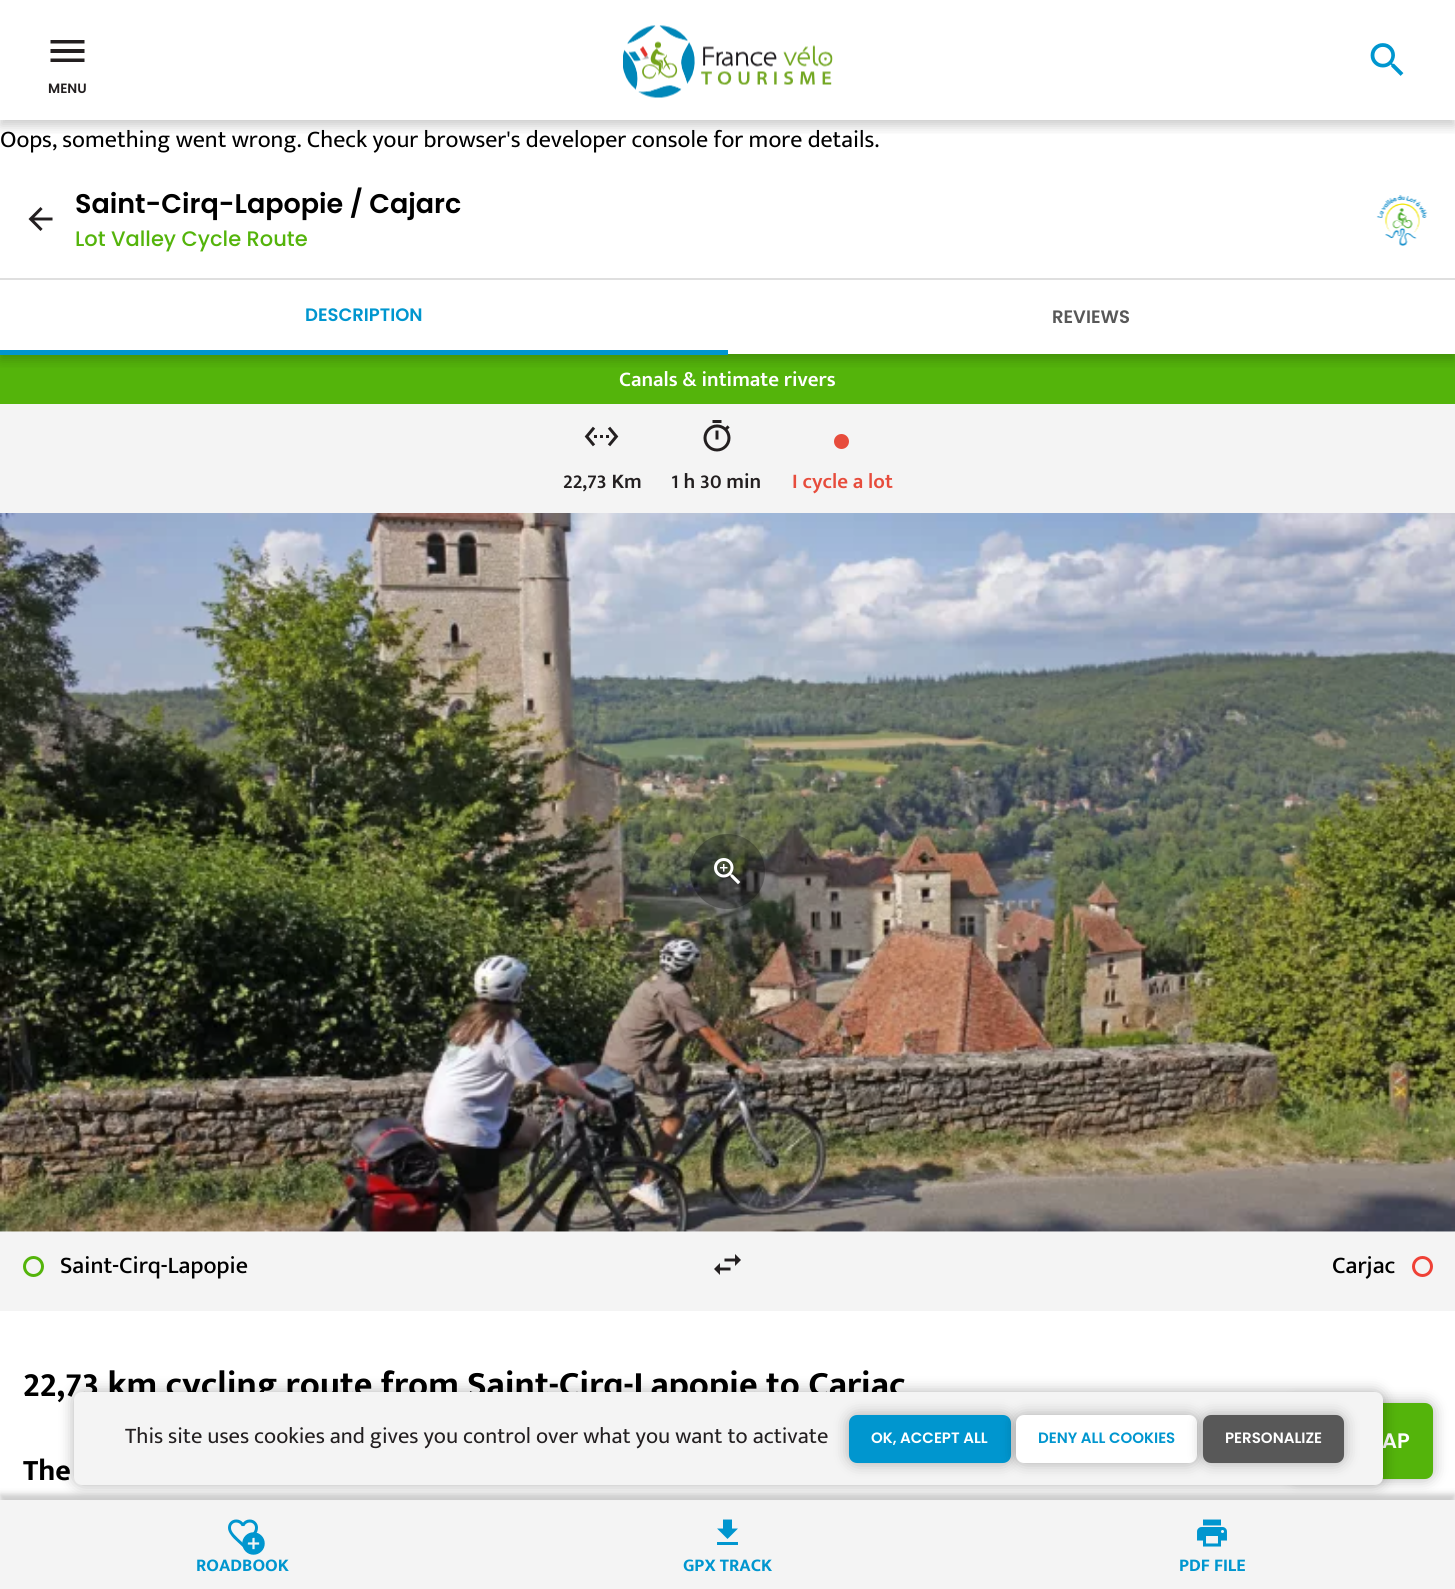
#include <cairo.h>
#include <math.h>
#include <stddef.h>

static cairo_t *c;
static void C(unsigned color){cairo_set_source_rgb(c, (color >> 16) / 255.0, (color >> 8 & 255) / 255.0, (color & 255) / 255.0);}
static void F(const char *family, double size, int italic, int bold){cairo_select_font_face(c, family, italic ? CAIRO_FONT_SLANT_ITALIC : CAIRO_FONT_SLANT_NORMAL,bold ? CAIRO_FONT_WEIGHT_BOLD : CAIRO_FONT_WEIGHT_NORMAL);cairo_set_font_size(c, size);}
static void T(double x, double y, const char *s){cairo_move_to(c, x, y);cairo_show_text(c, s);}
static void R(double x, double y, double w, double h){cairo_rectangle(c, x, y, w, h);cairo_fill(c);}
static void Q(double x, double y, double w, double h, double r){cairo_new_sub_path(c);cairo_arc(c, x + w - r, y + h - r, r, 0, M_PI / 2);cairo_arc(c, x + r, y + h - r, r, M_PI / 2, M_PI);cairo_arc(c, x + r, y + r, r, M_PI, 1.5 * M_PI);cairo_arc(c, x + w - r, y + r, r, 1.5 * M_PI, 2 * M_PI);cairo_close_path(c);}
static void S(double x, double y, double w, double h, double r, double blur, double alpha){cairo_push_group_with_content(c, CAIRO_CONTENT_ALPHA);cairo_set_operator(c, CAIRO_OPERATOR_SOURCE);for (int i = 15; i >= -15 && fmin(w, h) + blur * i / 3 > 0; i -= 2) {double e = blur * i / 6;cairo_set_source_rgba(c, 0, 0, 0, alpha * erfc((i - 1) / 8.5) / 2);Q(x - e, y - e, w + 2 * e, h + 2 * e, fmax(0, fmin(r + e + blur * .6, fmin(w, h) / 2 + e)));cairo_fill(c);}cairo_pattern_t *soft = cairo_pop_group(c);cairo_mask(c, soft);cairo_pattern_destroy(soft);}
static void I(const char *path, double x, double y, double w, double h){cairo_surface_t *image = cairo_image_surface_create_from_png(path);cairo_save(c);cairo_set_source_surface(c, image, x, y);cairo_rectangle(c, x, y, w, h);cairo_fill(c);cairo_restore(c);cairo_surface_destroy(image);}
int main(void) {
cairo_surface_t *surface = cairo_image_surface_create(CAIRO_FORMAT_RGB24, 1455, 1589);
c = cairo_create(surface);
cairo_font_options_t *options = cairo_font_options_create();
cairo_font_options_set_hint_metrics(options, CAIRO_HINT_METRICS_OFF);
cairo_font_options_set_hint_style(options, CAIRO_HINT_STYLE_NONE);
cairo_set_font_options(c, options);
cairo_set_miter_limit(c, 4);
C(0xffffff);
cairo_paint(c);
cairo_save(c);
cairo_rectangle(c,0,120,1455,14);
cairo_clip(c);
C(0x000000);
S(0,6,1455,120,0,6,.2);
cairo_restore(c);
I("1.png",623,25,210,73);
I("2.png",1370,43,34,33);
C(0x231f20);
cairo_new_path(c);
cairo_move_to(c,50.5,40);
cairo_line_to(c,84.5,40);
cairo_line_to(c,84.5,43.5);
cairo_line_to(c,50.5,43.5);
cairo_close_path(c);
cairo_move_to(c,50.5,53);
cairo_line_to(c,50.5,49);
cairo_line_to(c,84.5,49);
cairo_line_to(c,84.5,53);
cairo_close_path(c);
cairo_move_to(c,50.5,62);
cairo_line_to(c,50.5,58.5);
cairo_line_to(c,84.5,58.5);
cairo_line_to(c,84.5,62);
cairo_close_path(c);
cairo_fill(c);
F("Poppins SemiBold",13.5,0,0);
T(48,93,"MENU");
F("Mukta Mahee",24,0,0);
C(0x000000);
T(0,147,"Oops, something went wrong. Check your browser's developer console for more details.");
C(0x54b40b);
R(0,354,1455,50);
cairo_save(c);
cairo_rectangle(c,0,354,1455,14);
cairo_clip(c);
C(0x000000);
S(0,285,1455,75,0,6,.2);
cairo_restore(c);
C(0xffffff);
R(0,275,1455,3);
C(0xdfdfdf);
R(0,278,1455,2);
I("3.png",28,207,25,24);
F("Poppins SemiBold",27,0,0);
C(0x000000);
T(75,213,"Saint-Cirq-Lapopie / Cajarc");
F("Poppins Medium",21,0,0);
C(0x54b40b);
T(75,246,"Lot Valley Cycle Route");
I("4.png",1376,195,52,51);
C(0x0096cf);
R(0,350,728,5);
F("Poppins SemiBold",18,0,0);
T(305,321,"DESCRIPTION");
C(0x585858);
T(1052,323,"REVIEWS");
F("Mukta Mahee SemiBold",21,0,0);
C(0xffffff);
T(619,386,"Canals & intimate rivers");
C(0xf4f4f4);
R(0,404,1455,109);
I("5.png",584,426,35,21);
C(0x231f20);
T(563,488,"22,73 Km");
I("6.png",703,420,28,32);
T(671,488,"1 h 30 min");
C(0xe74c3c);
cairo_new_path(c);
cairo_arc(c,841.5,441.5,7.5,0,2 * M_PI);
cairo_fill(c);
T(792,488,"I cycle a lot");
I("7.png",0,513,1455,719);
cairo_set_source_rgba(c,0,0,0,0.3);
cairo_arc(c,727.5,871.5,37.5,0,2 * M_PI);
cairo_fill(c);
I("8.png",714,858,27,27);
C(0xf4f4f4);
R(0,1232,1455,79);
cairo_arc(c,33.5,1266.5,9,0,2 * M_PI);
C(0x54b40b);
cairo_set_line_width(c,3);
cairo_stroke(c);
F("Mukta Mahee Medium",24,0,0);
C(0x000000);
T(60,1273,"Saint-Cirq-Lapopie");
I("9.png",714,1254,27,21);
T(1332,1273,"Carjac");
cairo_new_path(c);
cairo_arc(c,1422.5,1266.5,9,0,2 * M_PI);
C(0xef4136);
cairo_stroke(c);
F("Mukta Mahee",36,0,1);
C(0x000000);
T(23,1396,"22,73 km cycling route from Saint-Cirq-Lapopie to Carjac");
F("Mukta Mahee",30,0,1);
T(23,1480,"The");
C(0x000000);
S(0,1494,1455,90,0,3,.2);
C(0xf4f4f4);
R(0,1500,1455,89);
C(0x000000);
S(1289,1403,144,76,8,7.5,.3);
C(0x54b40b);
Q(1289,1403,144,76,8);
cairo_fill(c);
F("Poppins SemiBold",21,0,0);
C(0xffffff);
T(1382,1448,"AP");
I("10.png",228,1519,30,28);
I("11.png",242,1532,23,23);
F("Mukta Mahee",18,0,1);
C(0x0096cf);
T(196,1571,"ROADBOOK");
I("12.png",717,1519,21,26);
T(683,1571,"GPX TRACK");
I("13.png",1197,1519,30,28);
T(1179,1571,"PDF FILE");
C(0x000000);
S(74,1392,1309,93,8,7.5,.3);
C(0xf4f4f4);
Q(74,1392,1309,93,8);
cairo_fill(c);
F("Mukta Mahee",22.5,0,0);
C(0x231f20);
T(125,1443,"This site uses cookies and gives you control over what you want to activate");
C(0x000000);
S(849,1415,162,48,8,7.5,.3);
C(0x0096cf);
Q(849,1415,162,48,8);
cairo_fill(c);
F("Poppins SemiBold",15,0,0);
C(0xffffff);
T(871,1443,"OK, ACCEPT ALL");
C(0x000000);
S(1016,1415,181,48,8,7.5,.3);
C(0xffffff);
Q(1016,1415,181,48,8);
cairo_fill(c);
C(0x0096cf);
T(1038,1443,"DENY ALL COOKIES");
C(0x000000);
S(1203,1415,141,48,8,7.5,.3);
C(0x585858);
Q(1203,1415,141,48,8);
cairo_fill(c);
C(0xffffff);
T(1225,1443,"PERSONALIZE");
cairo_surface_write_to_png(surface, "o.png");
cairo_font_options_destroy(options);
cairo_destroy(c);
cairo_surface_destroy(surface);
return 0;
}
